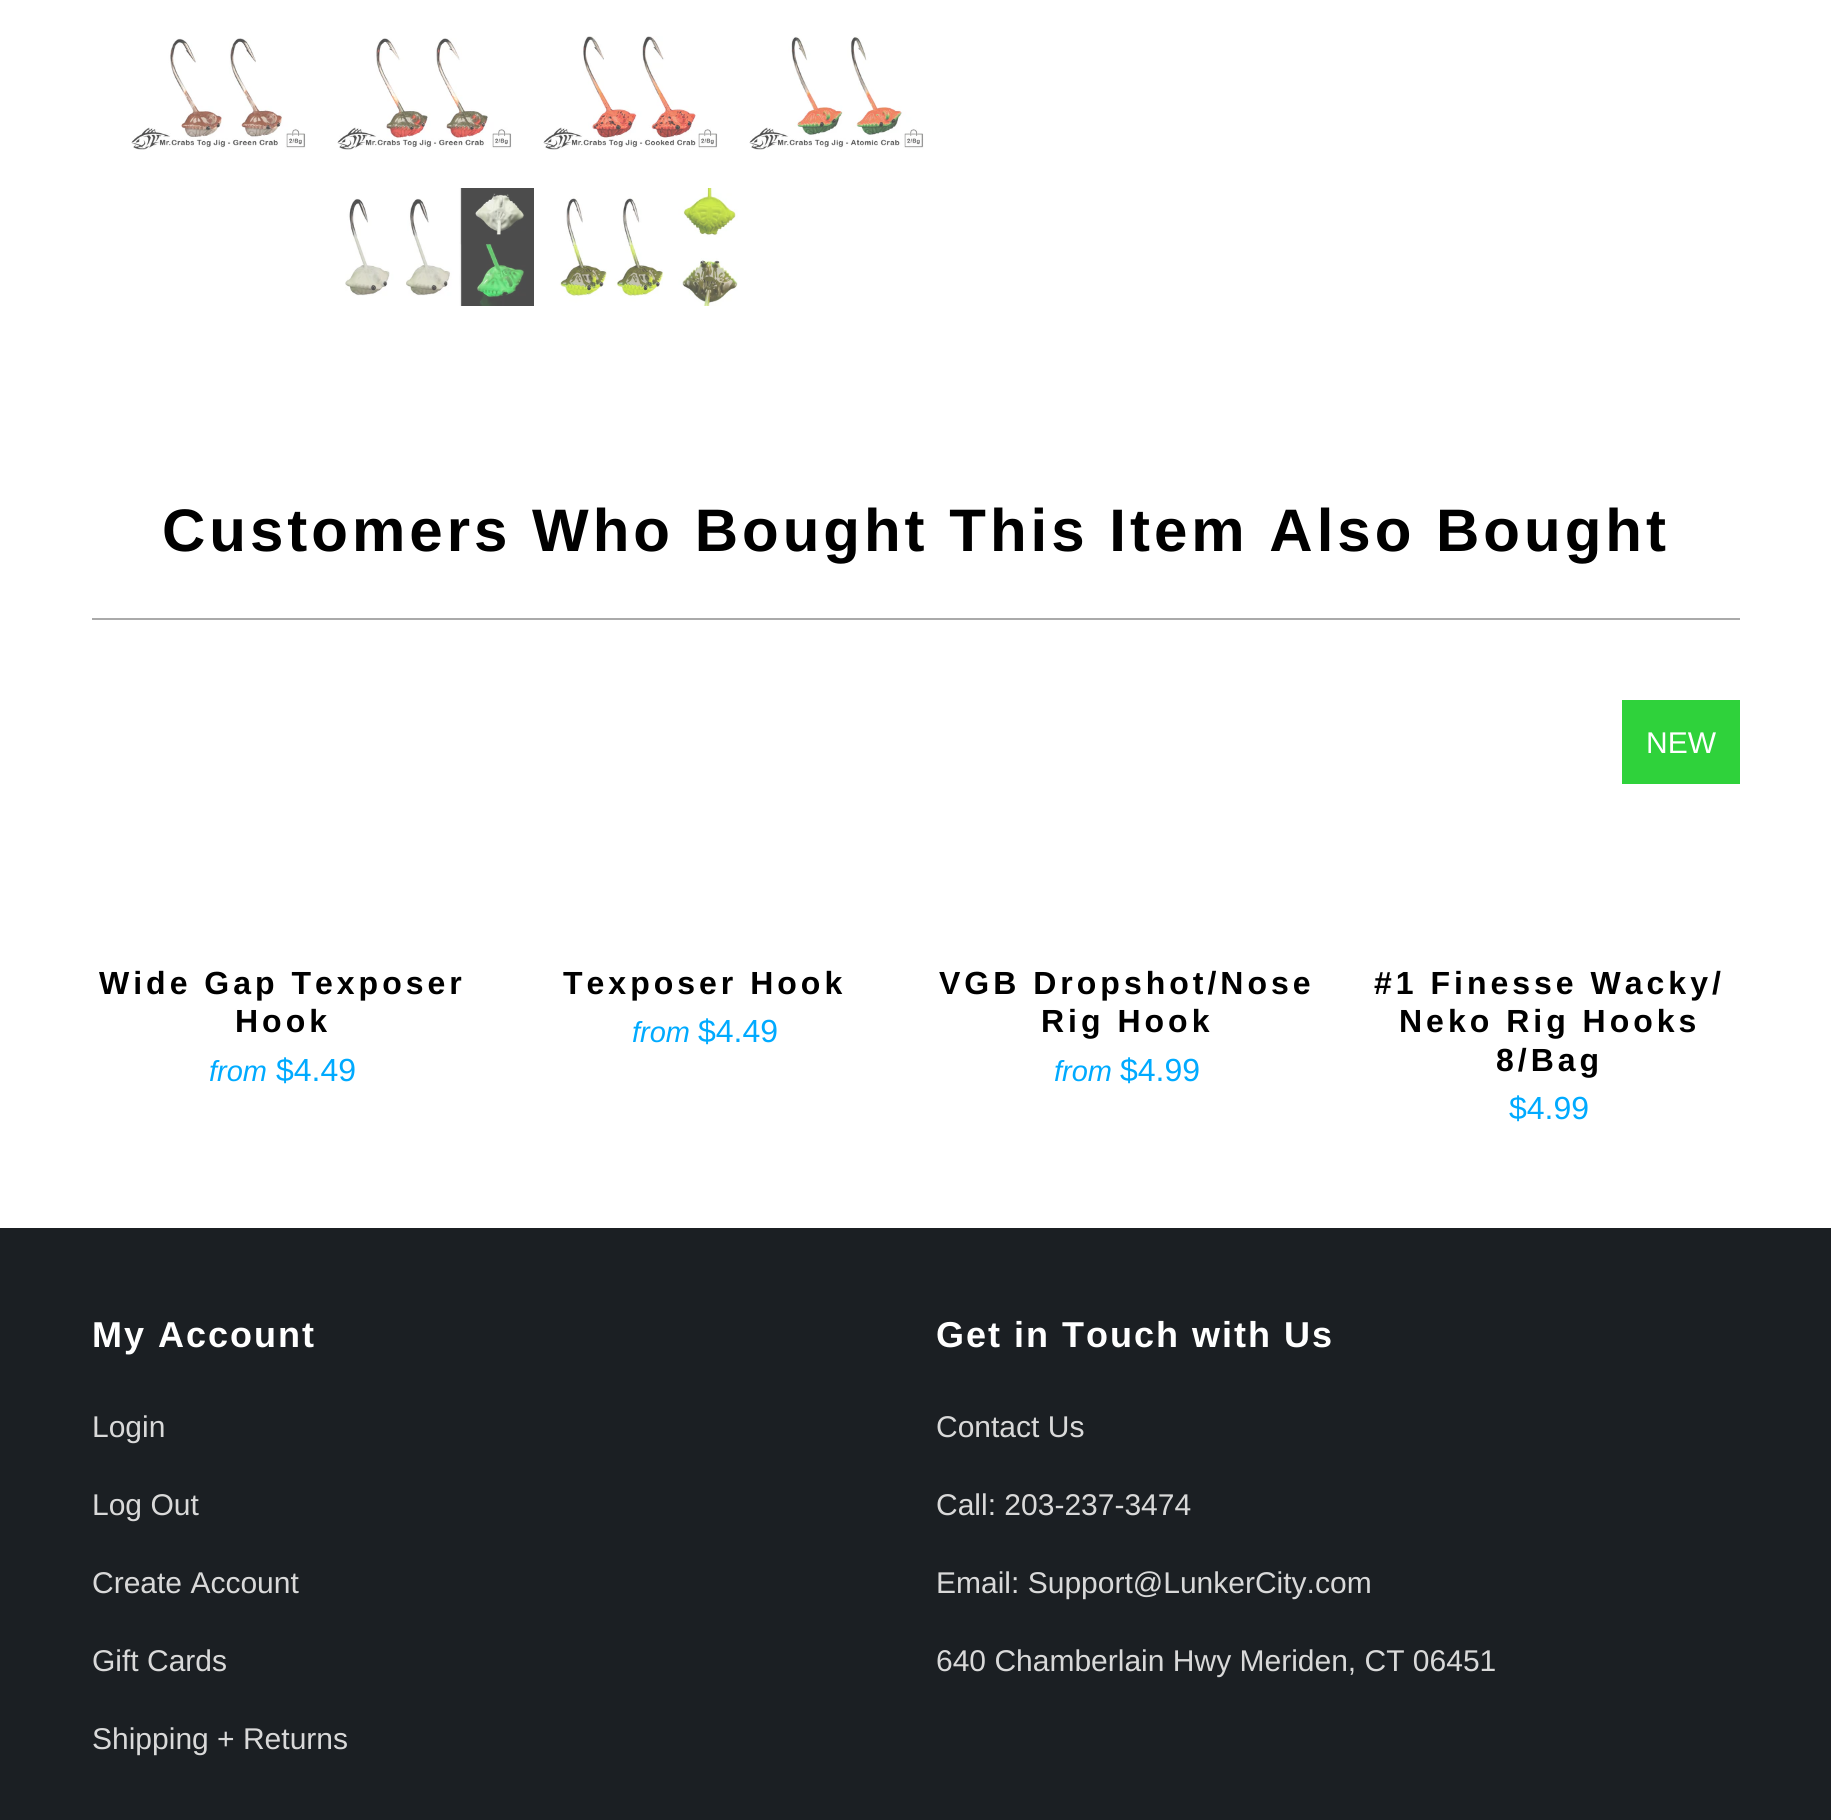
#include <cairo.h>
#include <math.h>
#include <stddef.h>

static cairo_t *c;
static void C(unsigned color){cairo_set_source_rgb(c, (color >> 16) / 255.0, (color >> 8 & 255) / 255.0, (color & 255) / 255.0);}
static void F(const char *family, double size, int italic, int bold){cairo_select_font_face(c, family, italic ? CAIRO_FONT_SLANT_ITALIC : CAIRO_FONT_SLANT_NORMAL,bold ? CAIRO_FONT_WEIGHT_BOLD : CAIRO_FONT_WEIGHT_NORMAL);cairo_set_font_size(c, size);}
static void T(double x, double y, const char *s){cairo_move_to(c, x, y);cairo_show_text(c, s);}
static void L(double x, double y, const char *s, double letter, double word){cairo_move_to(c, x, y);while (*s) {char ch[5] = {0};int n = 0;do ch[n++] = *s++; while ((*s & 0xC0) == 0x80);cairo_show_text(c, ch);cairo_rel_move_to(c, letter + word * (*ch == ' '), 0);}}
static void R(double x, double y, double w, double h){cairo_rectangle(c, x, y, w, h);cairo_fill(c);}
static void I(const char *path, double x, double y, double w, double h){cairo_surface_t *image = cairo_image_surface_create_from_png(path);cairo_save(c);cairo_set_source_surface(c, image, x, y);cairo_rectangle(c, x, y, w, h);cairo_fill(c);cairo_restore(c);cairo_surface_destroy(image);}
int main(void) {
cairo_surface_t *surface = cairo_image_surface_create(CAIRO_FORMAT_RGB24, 1831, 1820);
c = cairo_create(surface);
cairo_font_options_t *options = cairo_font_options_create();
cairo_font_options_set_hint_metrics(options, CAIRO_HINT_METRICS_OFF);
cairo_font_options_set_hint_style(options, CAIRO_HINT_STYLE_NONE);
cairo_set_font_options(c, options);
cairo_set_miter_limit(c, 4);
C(0xffffff);
cairo_paint(c);
I("1.png",131,38,175,112);
I("2.png",337,38,175,112);
I("3.png",543,36,175,114);
I("4.png",749,36,175,114);
I("5.png",345,188,189,118);
I("6.png",559,188,179,118);
F("Liberation Sans",60,0,1);
C(0x000000);
L(162,551,"Customers Who Bought This Item Also Bought",4,0);
C(0xaaaaaa);
R(92,618,1648,2);
F("Liberation Sans",32,0,1);
C(0x000000);
L(99,994,"Wide Gap Texposer",4,0);
L(235,1032,"Hook",4,0);
F("Liberation Sans",29,1,0);
C(0x00aaff);
T(209,1081,"from");
F("Liberation Sans",32,0,0);
T(276,1081,"$4.49");
F("Liberation Sans",32,0,1);
C(0x000000);
L(563,994,"Texposer Hook",4,0);
F("Liberation Sans",29,1,0);
C(0x00aaff);
T(632,1042,"from");
F("Liberation Sans",32,0,0);
T(698,1042,"$4.49");
F("Liberation Sans",32,0,1);
C(0x000000);
L(939,994,"VGB Dropshot/Nose",4,0);
L(1041,1032,"Rig Hook",4,0);
F("Liberation Sans",29,1,0);
C(0x00aaff);
T(1054,1081,"from");
F("Liberation Sans",32,0,0);
T(1120,1081,"$4.99");
C(0x2fd23b);
R(1622,700,118,84);
F("Liberation Sans",30,0,0);
C(0xffffff);
T(1646,753,"NEW");
F("Liberation Sans",32,0,1);
C(0x000000);
L(1374,994,"#1 Finesse Wacky/",4,0);
L(1399,1032,"Neko Rig Hooks",4,0);
L(1496,1071,"8/Bag",4,0);
F("Liberation Sans",32,0,0);
C(0x00aaff);
T(1509,1119,"$4.99");
C(0x1b1f23);
R(0,1228,1831,592);
F("Liberation Sans",36,0,1);
C(0xffffff);
L(92,1347,"My Account",2,0);
F("Liberation Sans",30,0,0);
C(0xd9d9d9);
T(92,1437,"Login");
T(92,1515,"Log Out");
T(92,1593,"Create Account");
T(92,1671,"Gift Cards");
T(92,1749,"Shipping + Returns");
F("Liberation Sans",36,0,1);
C(0xffffff);
L(936,1347,"Get in Touch with Us",2,0);
F("Liberation Sans",30,0,0);
C(0xd9d9d9);
T(936,1437,"Contact Us");
T(936,1515,"Call: 203-237-3474");
T(936,1593,"Email: Support@LunkerCity.com");
T(936,1671,"640 Chamberlain Hwy Meriden, CT 06451");
cairo_surface_write_to_png(surface, "o.png");
cairo_font_options_destroy(options);
cairo_destroy(c);
cairo_surface_destroy(surface);
return 0;
}
